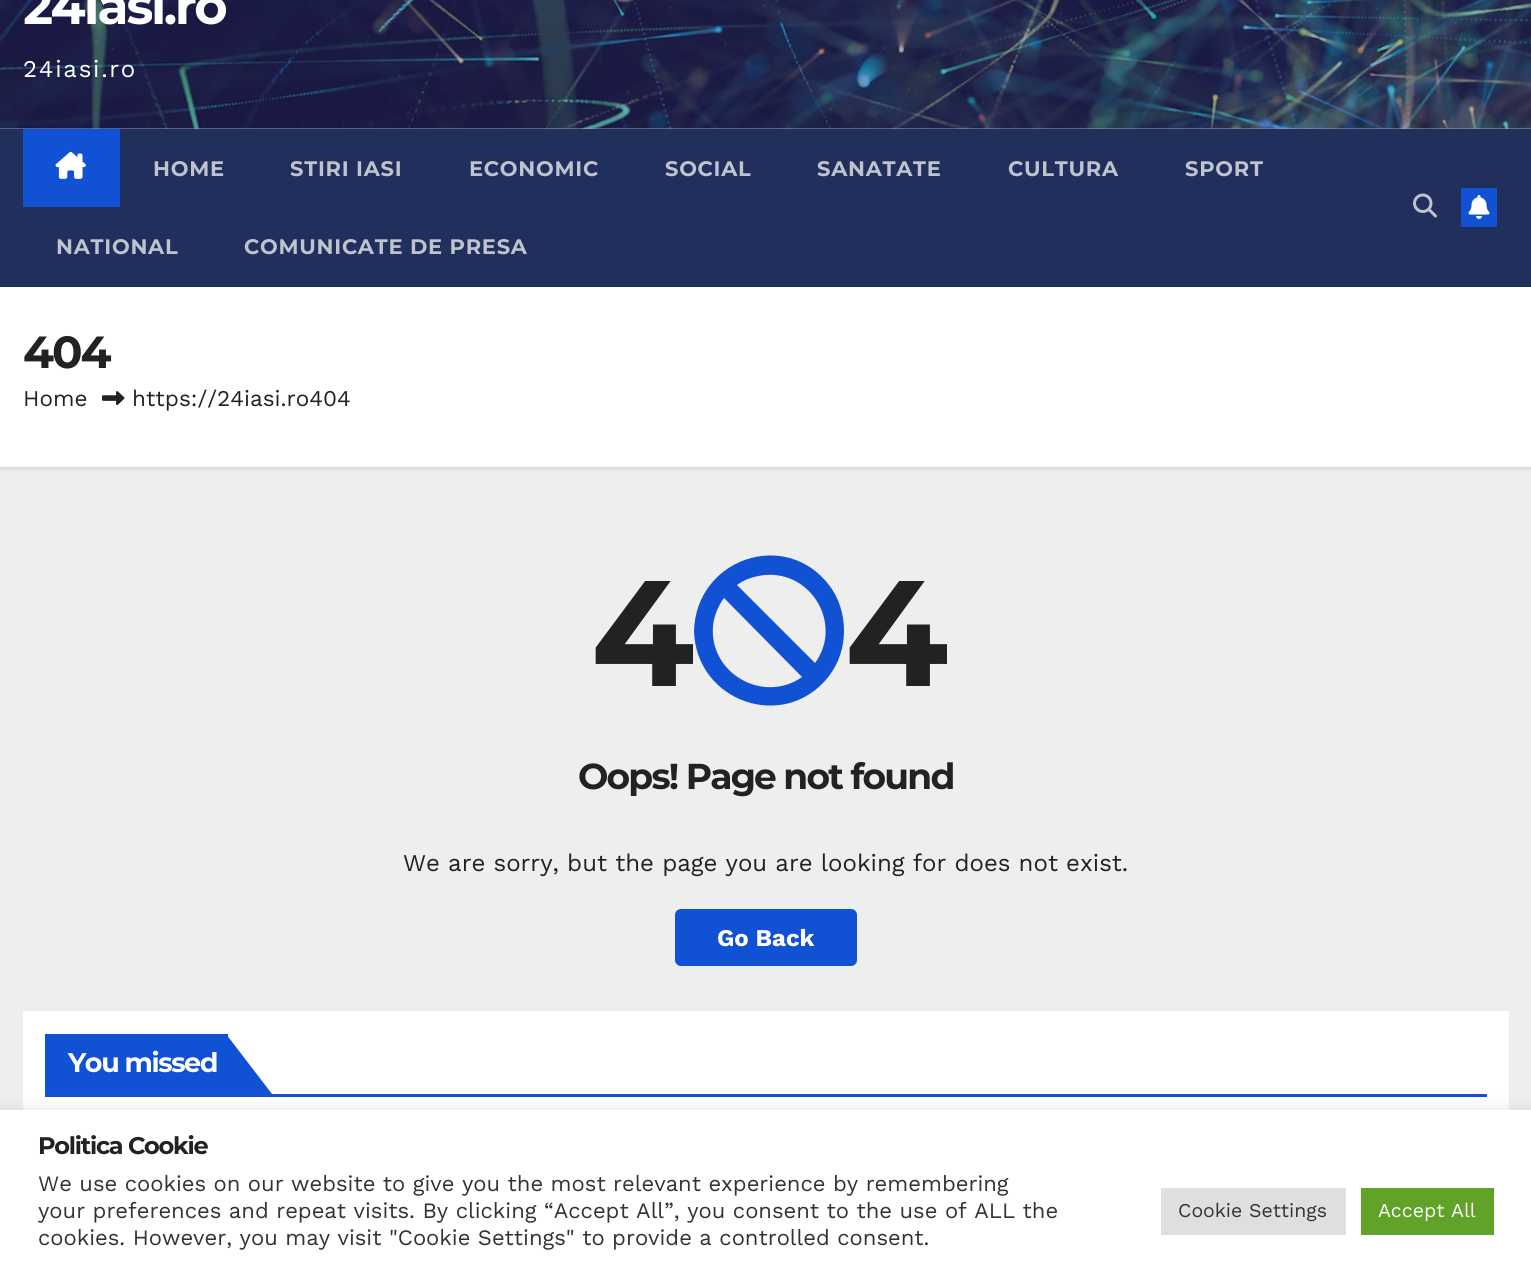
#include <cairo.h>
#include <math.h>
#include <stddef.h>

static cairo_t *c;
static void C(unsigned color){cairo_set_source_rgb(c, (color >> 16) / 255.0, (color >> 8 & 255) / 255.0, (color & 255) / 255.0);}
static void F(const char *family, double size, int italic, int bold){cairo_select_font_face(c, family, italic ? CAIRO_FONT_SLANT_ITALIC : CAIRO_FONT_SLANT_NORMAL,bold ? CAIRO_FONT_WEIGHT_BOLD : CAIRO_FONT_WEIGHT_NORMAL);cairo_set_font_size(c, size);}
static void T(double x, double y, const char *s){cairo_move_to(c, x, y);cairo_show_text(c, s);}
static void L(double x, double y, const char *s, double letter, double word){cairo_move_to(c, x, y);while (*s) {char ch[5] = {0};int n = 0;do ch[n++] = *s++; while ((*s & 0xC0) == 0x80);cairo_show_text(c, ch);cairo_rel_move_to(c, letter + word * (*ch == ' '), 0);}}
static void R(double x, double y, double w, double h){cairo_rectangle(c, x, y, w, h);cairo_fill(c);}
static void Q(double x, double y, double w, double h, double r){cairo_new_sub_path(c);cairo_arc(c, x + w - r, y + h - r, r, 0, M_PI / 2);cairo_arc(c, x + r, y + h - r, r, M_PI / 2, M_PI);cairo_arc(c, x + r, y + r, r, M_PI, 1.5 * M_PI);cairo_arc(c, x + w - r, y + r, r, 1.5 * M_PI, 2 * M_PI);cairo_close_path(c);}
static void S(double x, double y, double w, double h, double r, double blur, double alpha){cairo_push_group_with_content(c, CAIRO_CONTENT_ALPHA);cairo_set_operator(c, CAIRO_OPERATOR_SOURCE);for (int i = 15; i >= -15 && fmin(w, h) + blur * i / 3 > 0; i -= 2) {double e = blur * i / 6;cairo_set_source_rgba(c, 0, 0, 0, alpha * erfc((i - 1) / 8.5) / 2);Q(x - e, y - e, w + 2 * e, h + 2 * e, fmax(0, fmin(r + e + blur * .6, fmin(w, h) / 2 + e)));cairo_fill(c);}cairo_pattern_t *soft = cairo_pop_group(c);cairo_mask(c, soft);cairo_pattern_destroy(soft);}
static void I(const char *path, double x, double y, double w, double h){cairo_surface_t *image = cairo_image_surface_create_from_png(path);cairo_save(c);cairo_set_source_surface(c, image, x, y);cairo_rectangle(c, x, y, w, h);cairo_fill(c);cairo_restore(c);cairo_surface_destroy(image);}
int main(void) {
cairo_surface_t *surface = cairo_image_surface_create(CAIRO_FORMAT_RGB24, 1531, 1272);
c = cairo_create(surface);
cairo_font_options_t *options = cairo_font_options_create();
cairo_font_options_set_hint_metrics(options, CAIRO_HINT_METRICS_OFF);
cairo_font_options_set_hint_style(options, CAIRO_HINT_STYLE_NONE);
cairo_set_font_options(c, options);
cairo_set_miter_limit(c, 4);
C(0xeeeeee);
cairo_paint(c);
C(0x9ca2b3);
R(0,128,1531,1);
I("1.png",0,0,1531,129);
F("Montserrat",51,0,1);
C(0xffffff);
L(23,24,"24Iasi.ro",-2.5,0);
F("Work Sans",24,0,0);
L(23,77,"24iasi.ro",1.75,0);
C(0x000000);
S(0,288,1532,180,0,2,.15);
C(0x202f5b);
R(0,129,1531,158);
C(0x1151d3);
R(23,129,97,78);
I("2.png",55,151,31,28);
F("Montserrat",21,0,1);
C(0xbec3cf);
L(153,176,"HOME",.75,0);
L(290,176,"STIRI IASI",.75,0);
L(469,176,"ECONOMIC",.75,0);
L(665,176,"SOCIAL",.75,0);
L(817,176,"SANATATE",.75,0);
L(1008,176,"CULTURA",.75,0);
L(1185,176,"SPORT",.75,0);
L(56,254,"NATIONAL",.75,0);
L(244,254,"COMUNICATE DE PRESA",.75,0);
I("3.png",1413,193,24,25);
C(0x1151d3);
R(1461,188,36,39);
I("4.png",1468,195,22,24);
C(0xffffff);
R(0,287,1531,180);
F("Montserrat",45,0,1);
C(0x222222);
L(23,368,"404",-2,0);
F("Work Sans",22.5,0,0);
T(23,406,"Home");
I("5.png",102,391,23,14);
T(132,406,"https://24iasi.ro404");
F("Montserrat",150,0,1);
L(591,686,"4",-8,0);
C(0x1151d3);
cairo_new_path(c);
cairo_move_to(c,802,677);
cairo_line_to(c,724,598);
cairo_curve_to(c,718,606,714,616,713,626);
cairo_curve_to(c,709,674,764,704,802,677);
cairo_close_path(c);
cairo_move_to(c,815,663);
cairo_curve_to(c,843,625,812,571,765,575);
cairo_curve_to(c,755,576,745,579,737,585);
cairo_close_path(c);
cairo_move_to(c,694,631);
cairo_curve_to(c,696,559,785,528,829,585);
cairo_curve_to(c,839,598,844,614,844,631);
cairo_curve_to(c,844,647,839,663,829,676);
cairo_curve_to(c,785,733,696,702,694,631);
cairo_close_path(c);
cairo_fill(c);
C(0x222222);
L(845,686,"4",-8,0);
F("Montserrat",36,0,1);
L(578,789,"Oops! Page not found",-1.8,0);
F("Work Sans",24,0,0);
T(403,871,"We are sorry, but the page you are looking for does not exist.");
C(0x1151d3);
Q(676.5,910.5,179,54,4.5);
cairo_fill_preserve(c);
cairo_set_line_width(c,3);
cairo_stroke(c);
F("Work Sans",24,0,1);
C(0xffffff);
T(717,946,"Go Back");
R(23,1011,1486,99);
C(0x1151d3);
R(45,1094,1442,3);
R(45,1034,183,60);
F("Montserrat",27,0,1);
C(0xffffff);
L(68,1072,"You missed",-1.4,0);
C(0x1151d3);
cairo_new_path(c);
cairo_move_to(c,226,1094);
cairo_line_to(c,226,1034);
cairo_line_to(c,272,1094);
cairo_close_path(c);
cairo_fill(c);
C(0xacabab);
S(0,1109,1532,162,0,7.5,.3);
C(0xffffff);
R(0,1110,1531,162);
F("Montserrat",24,0,1);
C(0x222222);
L(38,1154,"Politica Cookie",-1.25,0);
F("Work Sans",22,0,0);
C(0x333333);
T(38,1191,"We use cookies on our website to give you the most relevant experience by remembering");
T(38,1218,"your preferences and repeat visits. By clicking “Accept All”, you consent to the use of ALL the");
T(38,1245,"cookies. However, you may visit \"Cookie Settings\" to provide a controlled consent.");
C(0xdedfe0);
R(1161,1188,185,47);
F("Work Sans",19.5,0,0);
C(0x333333);
T(1178,1217,"Cookie Settings");
C(0x61a229);
R(1361,1188,133,47);
C(0xffffff);
T(1378,1217,"Accept All");
cairo_surface_write_to_png(surface, "o.png");
cairo_font_options_destroy(options);
cairo_destroy(c);
cairo_surface_destroy(surface);
return 0;
}
